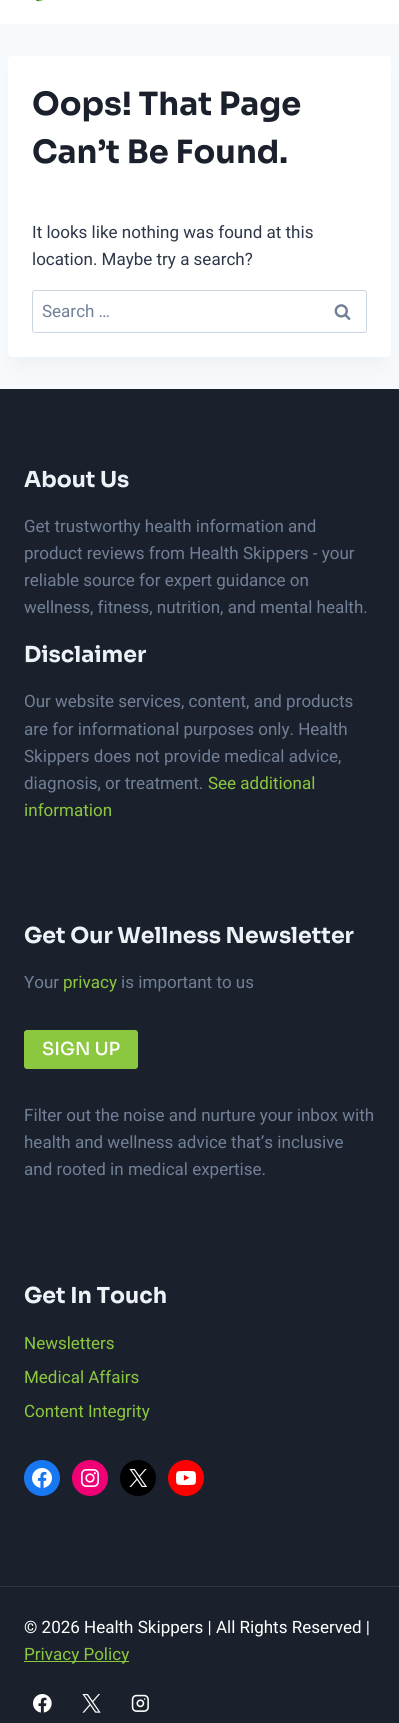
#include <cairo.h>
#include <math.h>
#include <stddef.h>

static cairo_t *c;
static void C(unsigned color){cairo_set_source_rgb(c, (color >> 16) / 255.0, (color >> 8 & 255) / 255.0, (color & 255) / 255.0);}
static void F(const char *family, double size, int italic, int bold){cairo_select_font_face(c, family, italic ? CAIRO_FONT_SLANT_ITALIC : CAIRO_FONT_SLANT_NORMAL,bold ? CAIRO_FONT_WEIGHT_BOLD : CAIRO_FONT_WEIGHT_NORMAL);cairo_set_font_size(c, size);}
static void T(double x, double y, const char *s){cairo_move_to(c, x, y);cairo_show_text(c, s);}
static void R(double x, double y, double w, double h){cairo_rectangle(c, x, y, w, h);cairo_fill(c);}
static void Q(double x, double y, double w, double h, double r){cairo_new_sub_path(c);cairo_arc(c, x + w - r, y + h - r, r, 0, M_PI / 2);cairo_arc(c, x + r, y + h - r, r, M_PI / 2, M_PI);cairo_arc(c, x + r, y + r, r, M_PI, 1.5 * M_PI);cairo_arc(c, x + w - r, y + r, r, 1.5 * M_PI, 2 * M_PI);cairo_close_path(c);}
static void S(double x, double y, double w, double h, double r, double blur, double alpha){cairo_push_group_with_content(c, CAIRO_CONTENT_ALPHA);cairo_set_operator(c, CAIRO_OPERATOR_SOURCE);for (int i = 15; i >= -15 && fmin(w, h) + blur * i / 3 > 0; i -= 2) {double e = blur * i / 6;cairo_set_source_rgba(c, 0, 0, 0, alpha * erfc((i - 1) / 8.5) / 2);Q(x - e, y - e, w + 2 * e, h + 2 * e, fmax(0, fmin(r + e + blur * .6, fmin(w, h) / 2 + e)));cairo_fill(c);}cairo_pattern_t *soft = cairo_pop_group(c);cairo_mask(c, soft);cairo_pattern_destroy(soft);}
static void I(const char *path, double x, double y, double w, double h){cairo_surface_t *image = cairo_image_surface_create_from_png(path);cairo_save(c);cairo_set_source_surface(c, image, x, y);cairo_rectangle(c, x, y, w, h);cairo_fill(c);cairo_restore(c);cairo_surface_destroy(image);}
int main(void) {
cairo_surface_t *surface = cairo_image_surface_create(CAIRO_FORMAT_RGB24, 399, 1723);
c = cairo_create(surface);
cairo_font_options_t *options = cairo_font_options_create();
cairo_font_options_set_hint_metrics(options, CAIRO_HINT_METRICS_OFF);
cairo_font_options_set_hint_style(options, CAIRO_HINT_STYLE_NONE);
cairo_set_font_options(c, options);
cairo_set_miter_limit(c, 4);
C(0xf7fafc);
cairo_paint(c);
C(0xffffff);
R(0,0,399,24);
I("1.png",35,0,10,2);
C(0x1a202c);
R(0,389,399,1334);
C(0x000000);
S(18,81,363,281,0,12.5,.05);
C(0xffffff);
Q(8,56,383,301,4);
cairo_fill(c);
F("Sora",32,0,1);
C(0x1a202c);
T(32,115,"Oops! That Page");
T(32,163,"Can’t Be Found.");
F("Heebo",17,0,0);
C(0x2d3748);
T(32,238,"It looks like nothing was found at this");
T(32,265,"location. Maybe try a search?");
Q(32.5,290.5,334,42,2.5);
C(0xcbd5e0);
cairo_set_line_width(c,1);
cairo_stroke(c);
C(0x718096);
T(42,317,"Search …");
I("2.png",334,304,17,16);
C(0x2d3748);
R(0,1586,399,1);
F("Sora",22,0,1);
C(0xedf2f7);
T(24,487,"About Us");
F("Heebo",17,0,0);
C(0x718096);
T(24,532,"Get trustworthy health information and");
T(24,559,"product reviews from Health Skippers - your");
T(24,586,"reliable source for expert guidance on");
T(24,613,"wellness, fitness, nutrition, and mental health.");
F("Sora",22,0,1);
C(0xedf2f7);
T(24,662,"Disclaimer");
F("Heebo",17,0,0);
C(0x718096);
T(24,707,"Our website services, content, and products");
T(24,735,"are for informational purposes only. Health");
T(24,762,"Skippers does not provide medical advice,");
T(24,789,"diagnosis, or treatment.");
C(0x8cc83f);
T(208,789,"See additional");
T(24,816,"information");
F("Sora",22,0,1);
C(0xedf2f7);
T(24,943,"Get Our Wellness Newsletter");
F("Heebo",17,0,0);
C(0x718096);
T(24,988,"Your");
C(0x8cc83f);
T(63,988,"privacy");
C(0x718096);
T(121,988,"is important to us");
C(0x8cc83f);
Q(24,1030,114,39,3);
cairo_fill(c);
F("Sora Medium",18,0,0);
C(0xffffff);
T(42,1055,"SIGN UP");
F("Heebo",17,0,0);
C(0x718096);
T(24,1121,"Filter out the noise and nurture your inbox with");
T(24,1148,"health and wellness advice that’s inclusive");
T(24,1175,"and rooted in medical expertise.");
F("Sora",22,0,1);
C(0xedf2f7);
T(24,1303,"Get In Touch");
F("Heebo",17,0,0);
C(0x8cc83f);
T(24,1349,"Newsletters");
T(24,1383,"Medical Affairs");
T(24,1417,"Content Integrity");
C(0x1778f2);
cairo_new_path(c);
cairo_arc(c,42,1478,18,0,2 * M_PI);
cairo_fill(c);
I("3.png",32,1468,20,20);
C(0xf00075);
cairo_arc(c,90,1478,18,0,2 * M_PI);
cairo_fill(c);
I("4.png",81,1469,18,18);
C(0x000000);
cairo_arc(c,138,1478,18,0,2 * M_PI);
cairo_fill(c);
I("5.png",129,1469,18,18);
C(0xff0000);
cairo_arc(c,186,1478,18,0,2 * M_PI);
cairo_fill(c);
I("6.png",176,1471,20,14);
C(0xffffff);
T(24,1633,"© 2026 Health Skippers | All Rights Reserved |");
C(0x8cc83f);
R(24,1661,105,1);
T(24,1660,"Privacy Policy");
I("7.png",33,1694,19,19);
I("8.png",82,1694,19,19);
I("9.png",131,1694,18,18);
cairo_surface_write_to_png(surface, "o.png");
cairo_font_options_destroy(options);
cairo_destroy(c);
cairo_surface_destroy(surface);
return 0;
}
